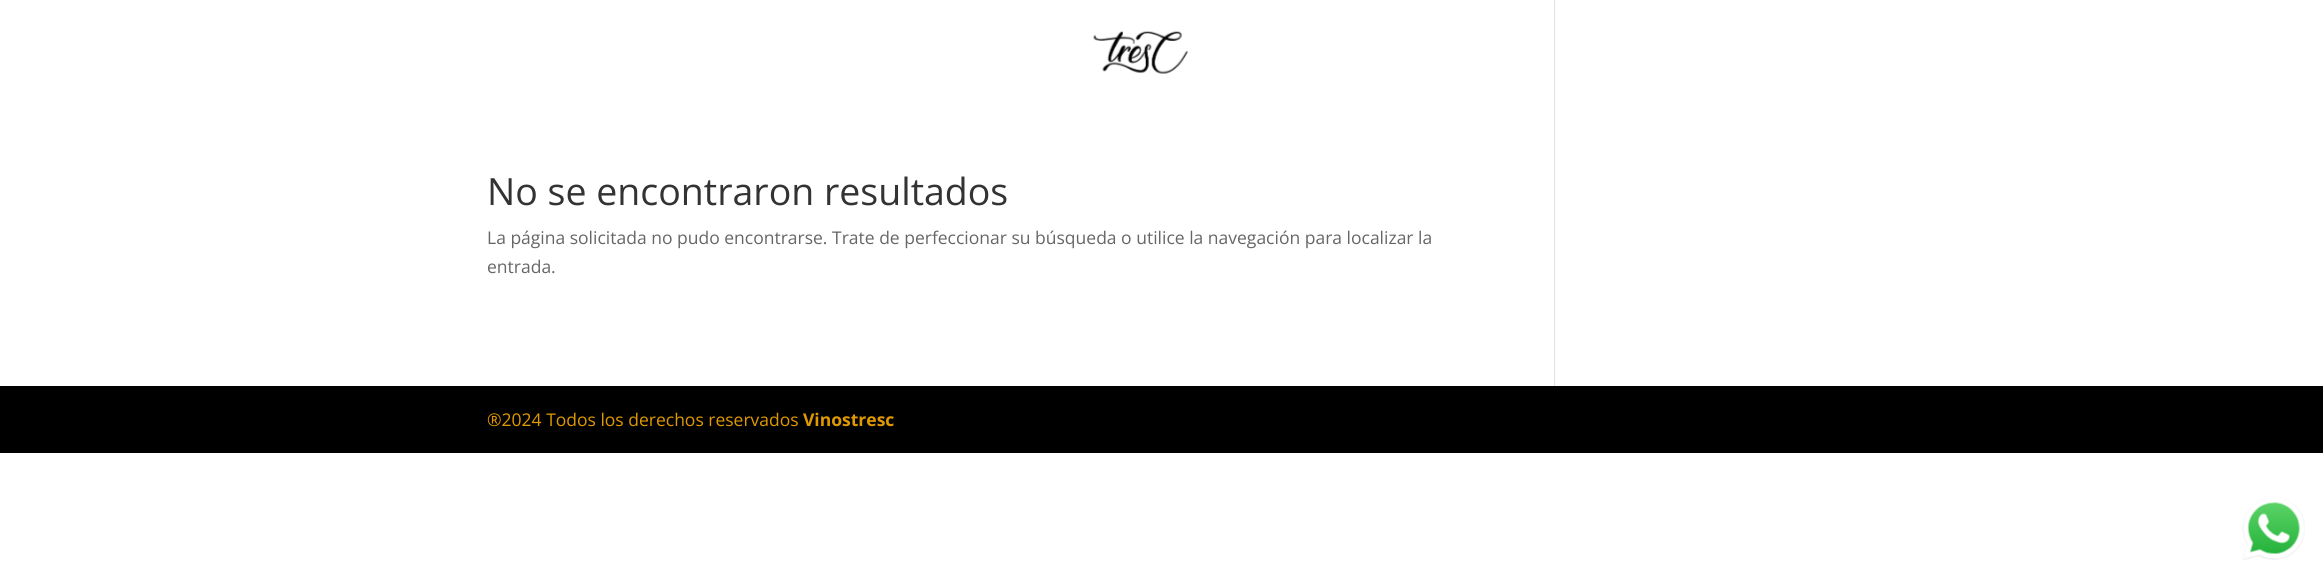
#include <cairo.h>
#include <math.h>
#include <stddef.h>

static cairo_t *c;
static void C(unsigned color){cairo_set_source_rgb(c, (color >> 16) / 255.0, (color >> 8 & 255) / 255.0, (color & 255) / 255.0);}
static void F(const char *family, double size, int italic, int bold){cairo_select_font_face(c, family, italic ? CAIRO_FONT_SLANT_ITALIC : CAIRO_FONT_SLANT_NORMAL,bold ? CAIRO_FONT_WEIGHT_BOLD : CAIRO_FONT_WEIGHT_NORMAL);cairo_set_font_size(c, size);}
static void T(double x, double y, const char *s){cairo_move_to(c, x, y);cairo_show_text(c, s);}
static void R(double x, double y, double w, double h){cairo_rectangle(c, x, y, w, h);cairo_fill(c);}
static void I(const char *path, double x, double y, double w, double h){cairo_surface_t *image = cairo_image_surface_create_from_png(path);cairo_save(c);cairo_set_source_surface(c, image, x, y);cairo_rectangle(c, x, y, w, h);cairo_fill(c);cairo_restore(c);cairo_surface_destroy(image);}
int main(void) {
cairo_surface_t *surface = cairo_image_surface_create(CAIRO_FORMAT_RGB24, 2323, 578);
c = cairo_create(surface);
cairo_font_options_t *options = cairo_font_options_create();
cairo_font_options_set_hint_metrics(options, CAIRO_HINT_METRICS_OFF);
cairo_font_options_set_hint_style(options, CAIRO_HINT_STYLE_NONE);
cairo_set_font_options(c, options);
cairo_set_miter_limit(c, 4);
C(0xffffff);
cairo_paint(c);
I("1.png",1093,31,95,43);
F("Open Sans",37.5,0,0);
C(0x333333);
T(487,205,"No se encontraron resultados");
F("Open Sans",17.5,0,0);
C(0x666666);
T(487,244,"La página solicitada no pudo encontrarse. Trate de perfeccionar su búsqueda o utilice la navegación para localizar la");
T(487,273,"entrada.");
C(0xe2e2e2);
R(1554,0,1,386);
C(0x000000);
R(0,386,2323,67);
C(0xe09900);
T(487,426,"®2024 Todos los derechos reservados");
F("Open Sans",17.5,0,1);
T(803,426,"Vinostresc");
I("2.png",2242,498,63,62);
cairo_surface_write_to_png(surface, "o.png");
cairo_font_options_destroy(options);
cairo_destroy(c);
cairo_surface_destroy(surface);
return 0;
}
